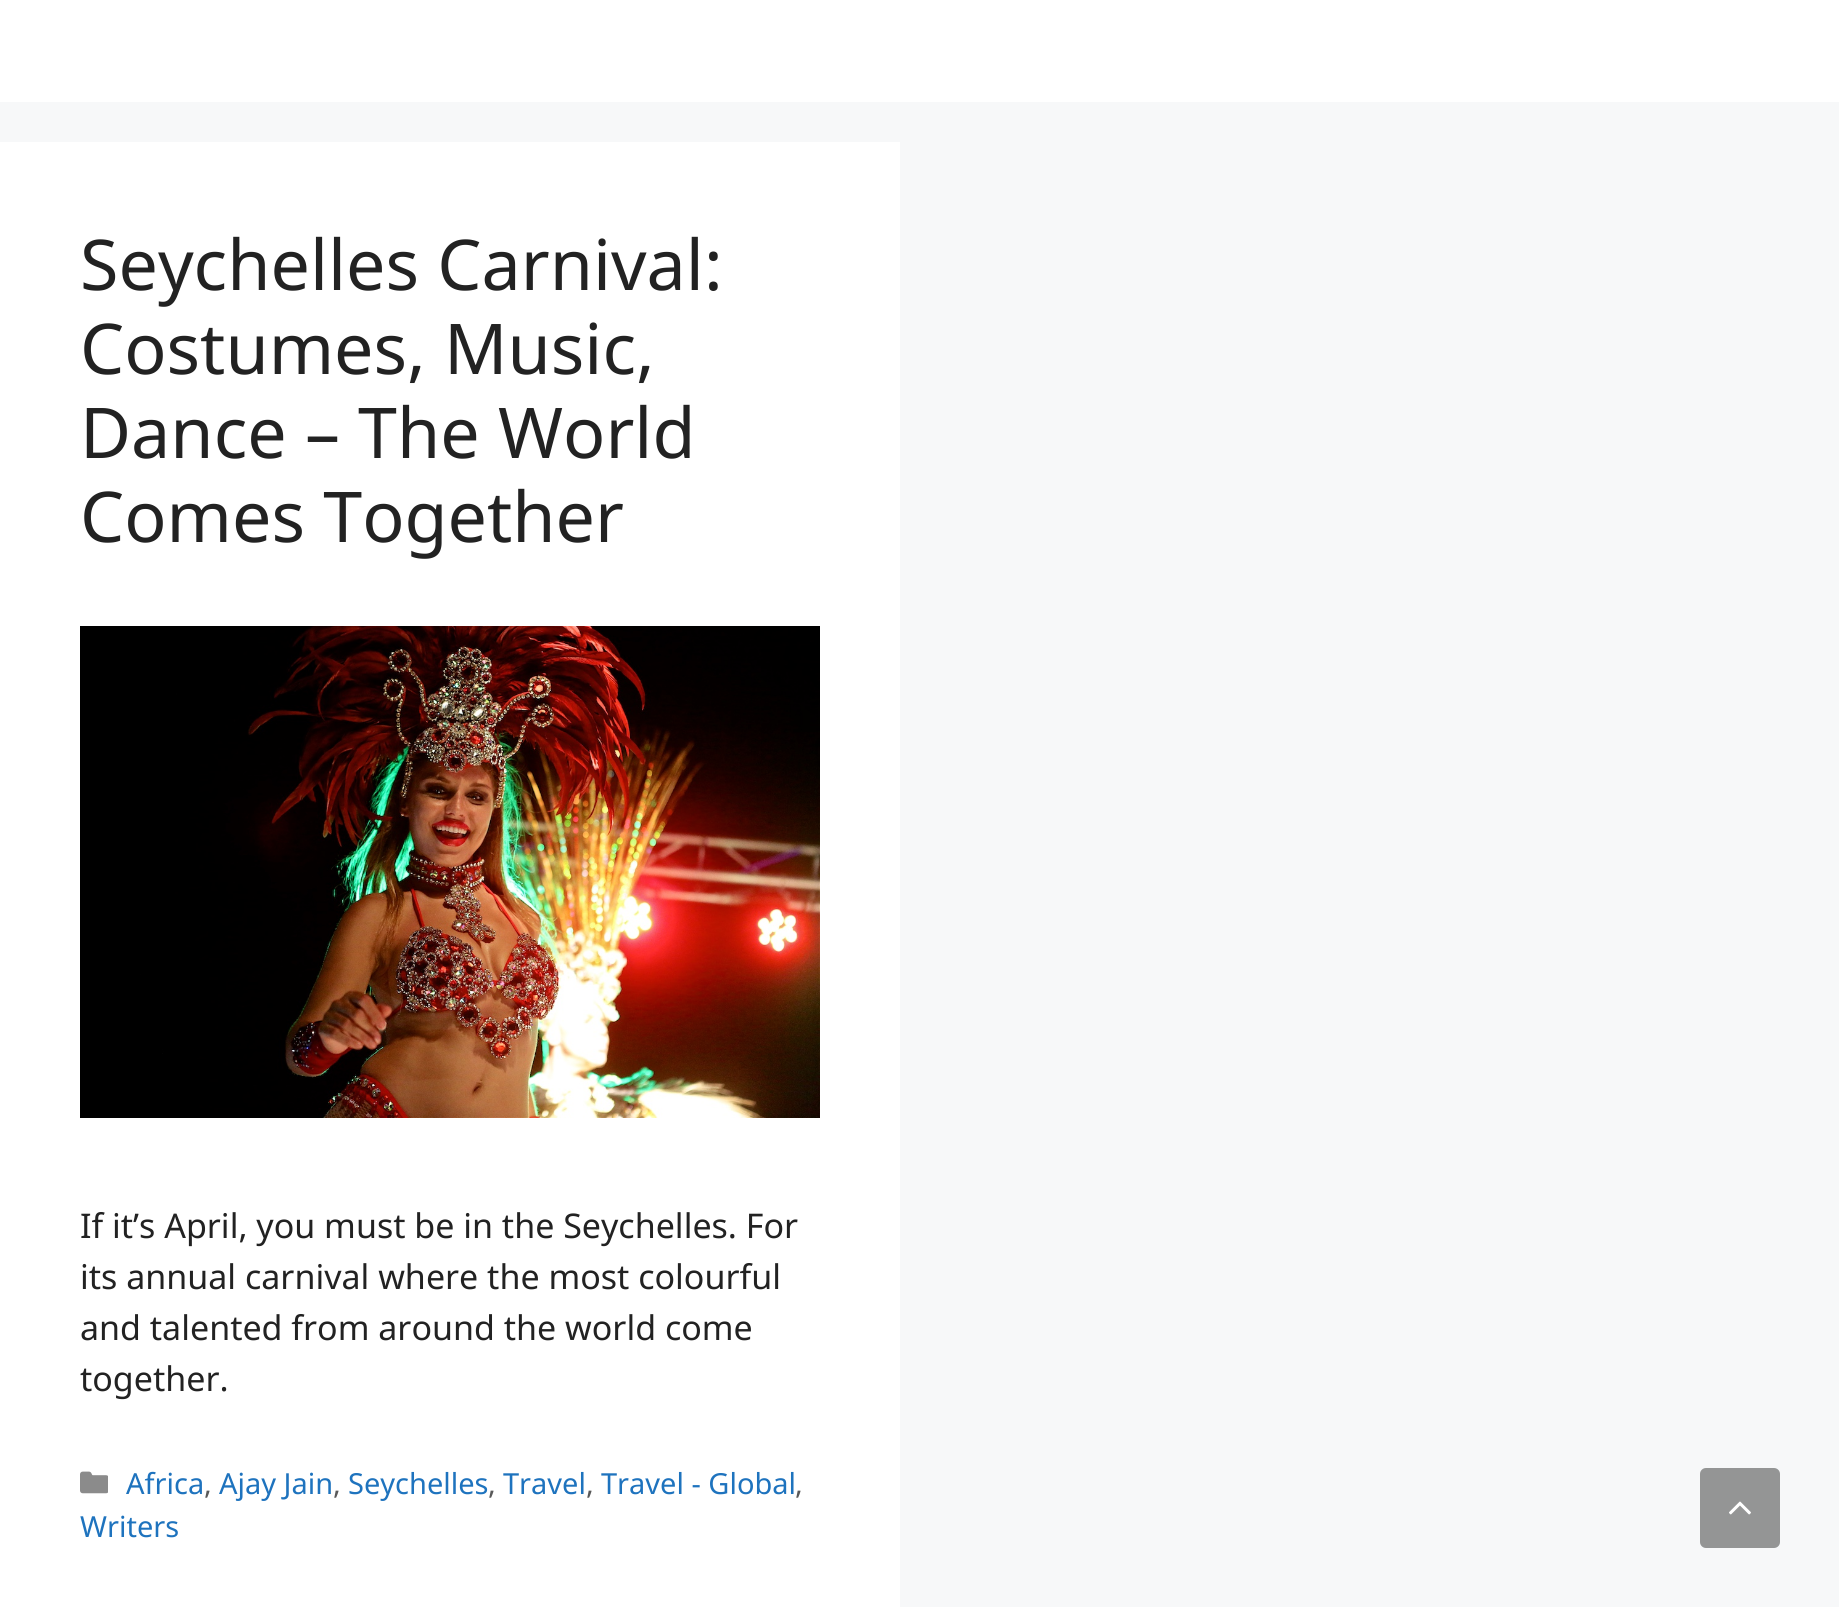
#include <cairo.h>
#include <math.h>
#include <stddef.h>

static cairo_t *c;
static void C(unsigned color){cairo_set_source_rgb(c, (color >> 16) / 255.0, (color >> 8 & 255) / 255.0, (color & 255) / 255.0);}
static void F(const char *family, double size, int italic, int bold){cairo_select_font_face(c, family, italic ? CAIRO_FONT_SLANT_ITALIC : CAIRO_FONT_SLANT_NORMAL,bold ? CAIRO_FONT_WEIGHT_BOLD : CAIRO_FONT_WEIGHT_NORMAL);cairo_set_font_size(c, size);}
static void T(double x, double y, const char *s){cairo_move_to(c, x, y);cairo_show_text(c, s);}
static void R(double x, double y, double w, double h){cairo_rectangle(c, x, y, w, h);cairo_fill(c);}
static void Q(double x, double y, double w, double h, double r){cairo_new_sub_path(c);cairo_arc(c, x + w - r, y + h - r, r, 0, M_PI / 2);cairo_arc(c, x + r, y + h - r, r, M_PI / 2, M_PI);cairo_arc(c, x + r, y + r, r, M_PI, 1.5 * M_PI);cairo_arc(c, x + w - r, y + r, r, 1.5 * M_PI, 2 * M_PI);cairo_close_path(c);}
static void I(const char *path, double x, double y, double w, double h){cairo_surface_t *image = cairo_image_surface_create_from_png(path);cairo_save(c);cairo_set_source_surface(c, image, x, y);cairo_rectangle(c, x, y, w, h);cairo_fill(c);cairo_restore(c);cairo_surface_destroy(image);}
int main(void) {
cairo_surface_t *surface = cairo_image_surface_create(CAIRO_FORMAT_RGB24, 1839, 1607);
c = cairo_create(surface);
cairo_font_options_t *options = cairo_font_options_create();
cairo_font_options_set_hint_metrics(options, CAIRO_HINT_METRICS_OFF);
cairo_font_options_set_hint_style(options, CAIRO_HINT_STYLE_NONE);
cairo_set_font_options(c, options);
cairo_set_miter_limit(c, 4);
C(0xf7f8f9);
cairo_paint(c);
C(0xffffff);
R(0,0,1839,102);
R(0,142,900,1465);
F("Noto Sans",70,0,0);
C(0x222222);
T(80,290,"Seychelles Carnival:");
T(80,374,"Costumes, Music,");
T(80,458,"Dance – The World");
T(80,542,"Comes Together");
I("1.png",80,626,740,492);
F("Noto Sans",34,0,0);
T(80,1238,"If it’s April, you must be in the Seychelles. For");
T(80,1289,"its annual carnival where the most colourful");
T(80,1340,"and talented from around the world come");
T(80,1391,"together.");
I("2.png",80,1471,28,23);
F("Noto Sans",29,0,0);
C(0x1e73be);
T(126,1494,"Africa");
C(0x595959);
T(204,1494,",");
C(0x1e73be);
T(219,1494,"Ajay Jain");
C(0x595959);
T(333,1494,",");
C(0x1e73be);
T(348,1494,"Seychelles");
C(0x595959);
T(488,1494,",");
C(0x1e73be);
T(503,1494,"Travel");
C(0x595959);
T(586,1494,",");
C(0x1e73be);
T(601,1494,"Travel - Global");
C(0x595959);
T(795,1494,",");
C(0x1e73be);
T(80,1537,"Writers");
C(0x949595);
Q(1700,1468,80,80,6);
cairo_fill(c);
I("3.png",1729,1501,22,14);
cairo_surface_write_to_png(surface, "o.png");
cairo_font_options_destroy(options);
cairo_destroy(c);
cairo_surface_destroy(surface);
return 0;
}
